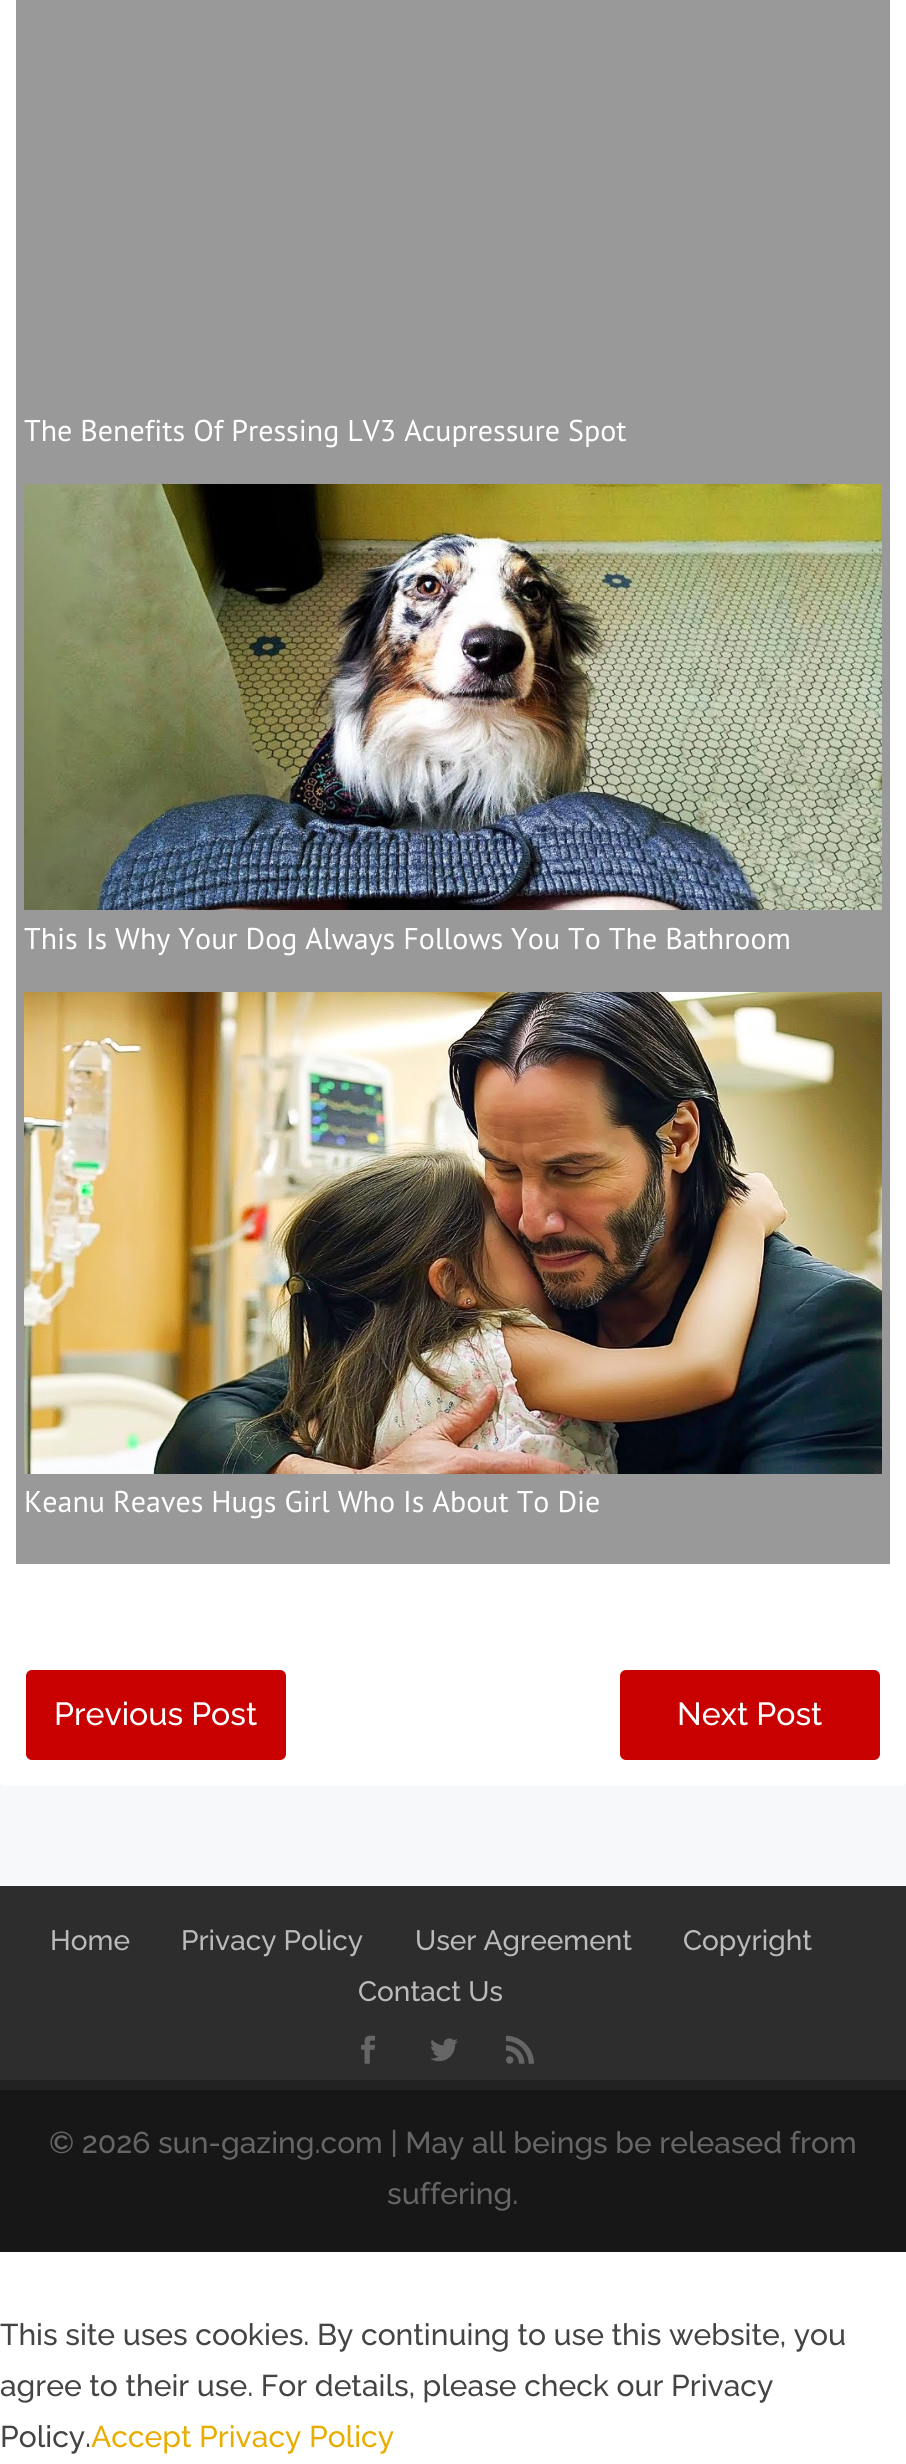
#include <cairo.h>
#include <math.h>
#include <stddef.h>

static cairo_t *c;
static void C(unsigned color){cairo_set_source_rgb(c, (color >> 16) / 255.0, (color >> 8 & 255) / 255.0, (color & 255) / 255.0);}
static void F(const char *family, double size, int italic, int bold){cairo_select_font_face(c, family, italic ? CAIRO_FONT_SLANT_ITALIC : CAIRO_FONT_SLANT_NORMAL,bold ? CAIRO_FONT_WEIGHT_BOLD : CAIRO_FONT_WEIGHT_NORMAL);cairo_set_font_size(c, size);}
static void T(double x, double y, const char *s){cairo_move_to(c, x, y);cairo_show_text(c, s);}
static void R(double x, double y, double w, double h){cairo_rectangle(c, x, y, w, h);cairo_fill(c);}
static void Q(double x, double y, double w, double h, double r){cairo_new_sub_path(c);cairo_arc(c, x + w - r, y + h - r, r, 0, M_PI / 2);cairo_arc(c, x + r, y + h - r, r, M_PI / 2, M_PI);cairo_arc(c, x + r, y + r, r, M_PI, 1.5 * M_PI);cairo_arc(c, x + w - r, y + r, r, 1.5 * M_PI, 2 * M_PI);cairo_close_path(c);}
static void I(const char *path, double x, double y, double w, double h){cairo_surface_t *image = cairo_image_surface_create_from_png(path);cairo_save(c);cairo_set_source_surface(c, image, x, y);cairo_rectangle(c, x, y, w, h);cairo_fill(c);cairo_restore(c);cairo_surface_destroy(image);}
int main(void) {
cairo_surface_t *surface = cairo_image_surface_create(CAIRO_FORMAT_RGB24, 906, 2464);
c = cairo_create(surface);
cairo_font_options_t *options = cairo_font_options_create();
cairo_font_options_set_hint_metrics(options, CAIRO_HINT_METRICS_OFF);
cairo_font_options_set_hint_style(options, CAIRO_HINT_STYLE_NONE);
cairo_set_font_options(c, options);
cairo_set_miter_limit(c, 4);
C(0xffffff);
cairo_paint(c);
C(0xf7f8f9);
R(0,1782,906,104);
C(0xffffff);
cairo_new_path(c);
cairo_move_to(c,0,-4);
cairo_line_to(c,906,-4);
cairo_line_to(c,906,1782);
cairo_curve_to(c,906,1784,904,1786,902,1786);
cairo_line_to(c,4,1786);
cairo_curve_to(c,2,1786,0,1784,0,1782);
cairo_close_path(c);
cairo_fill(c);
C(0x999999);
R(16,0,874,1564);
F("PT Sans",30,0,0);
C(0xffffff);
T(24,441,"The Benefits Of Pressing LV3 Acupressure Spot");
I("1.png",24,484,858,426);
T(24,949,"This Is Why Your Dog Always Follows You To The Bathroom");
I("2.png",24,992,858,482);
T(24,1512,"Keanu Reaves Hugs Girl Who Is About To Die");
C(0xc90000);
Q(26,1670,260,90,6);
cairo_fill(c);
F("Raleway Medium",32,0,0);
C(0xffffff);
T(54,1725,"Previous Post");
C(0xc90000);
Q(620,1670,260,90,6);
cairo_fill(c);
C(0xffffff);
T(677,1725,"Next Post");
C(0x222222);
R(0,2080,906,10);
C(0x2d2d2d);
R(0,1886,906,194);
F("Raleway Medium",28,0,0);
C(0xbbbbbb);
T(50,1950,"Home");
T(181,1950,"Privacy Policy");
T(415,1950,"User Agreement");
T(683,1950,"Copyright");
T(358,2001,"Contact Us");
I("3.png",361,2035,14,29);
I("4.png",430,2038,28,24);
I("5.png",506,2035,28,29);
C(0x171717);
R(0,2090,906,162);
F("Raleway Medium",30,0,0);
C(0x666666);
T(49,2153,"© 2026 sun-gazing.com | May all beings be released from");
T(387,2204,"suffering.");
C(0x444444);
T(0,2345,"This site uses cookies. By continuing to use this website, you");
T(0,2396,"agree to their use. For details, please check our Privacy");
T(0,2447,"Policy.");
C(0xe8ad00);
T(91,2447,"Accept Privacy Policy");
cairo_surface_write_to_png(surface, "o.png");
cairo_font_options_destroy(options);
cairo_destroy(c);
cairo_surface_destroy(surface);
return 0;
}
